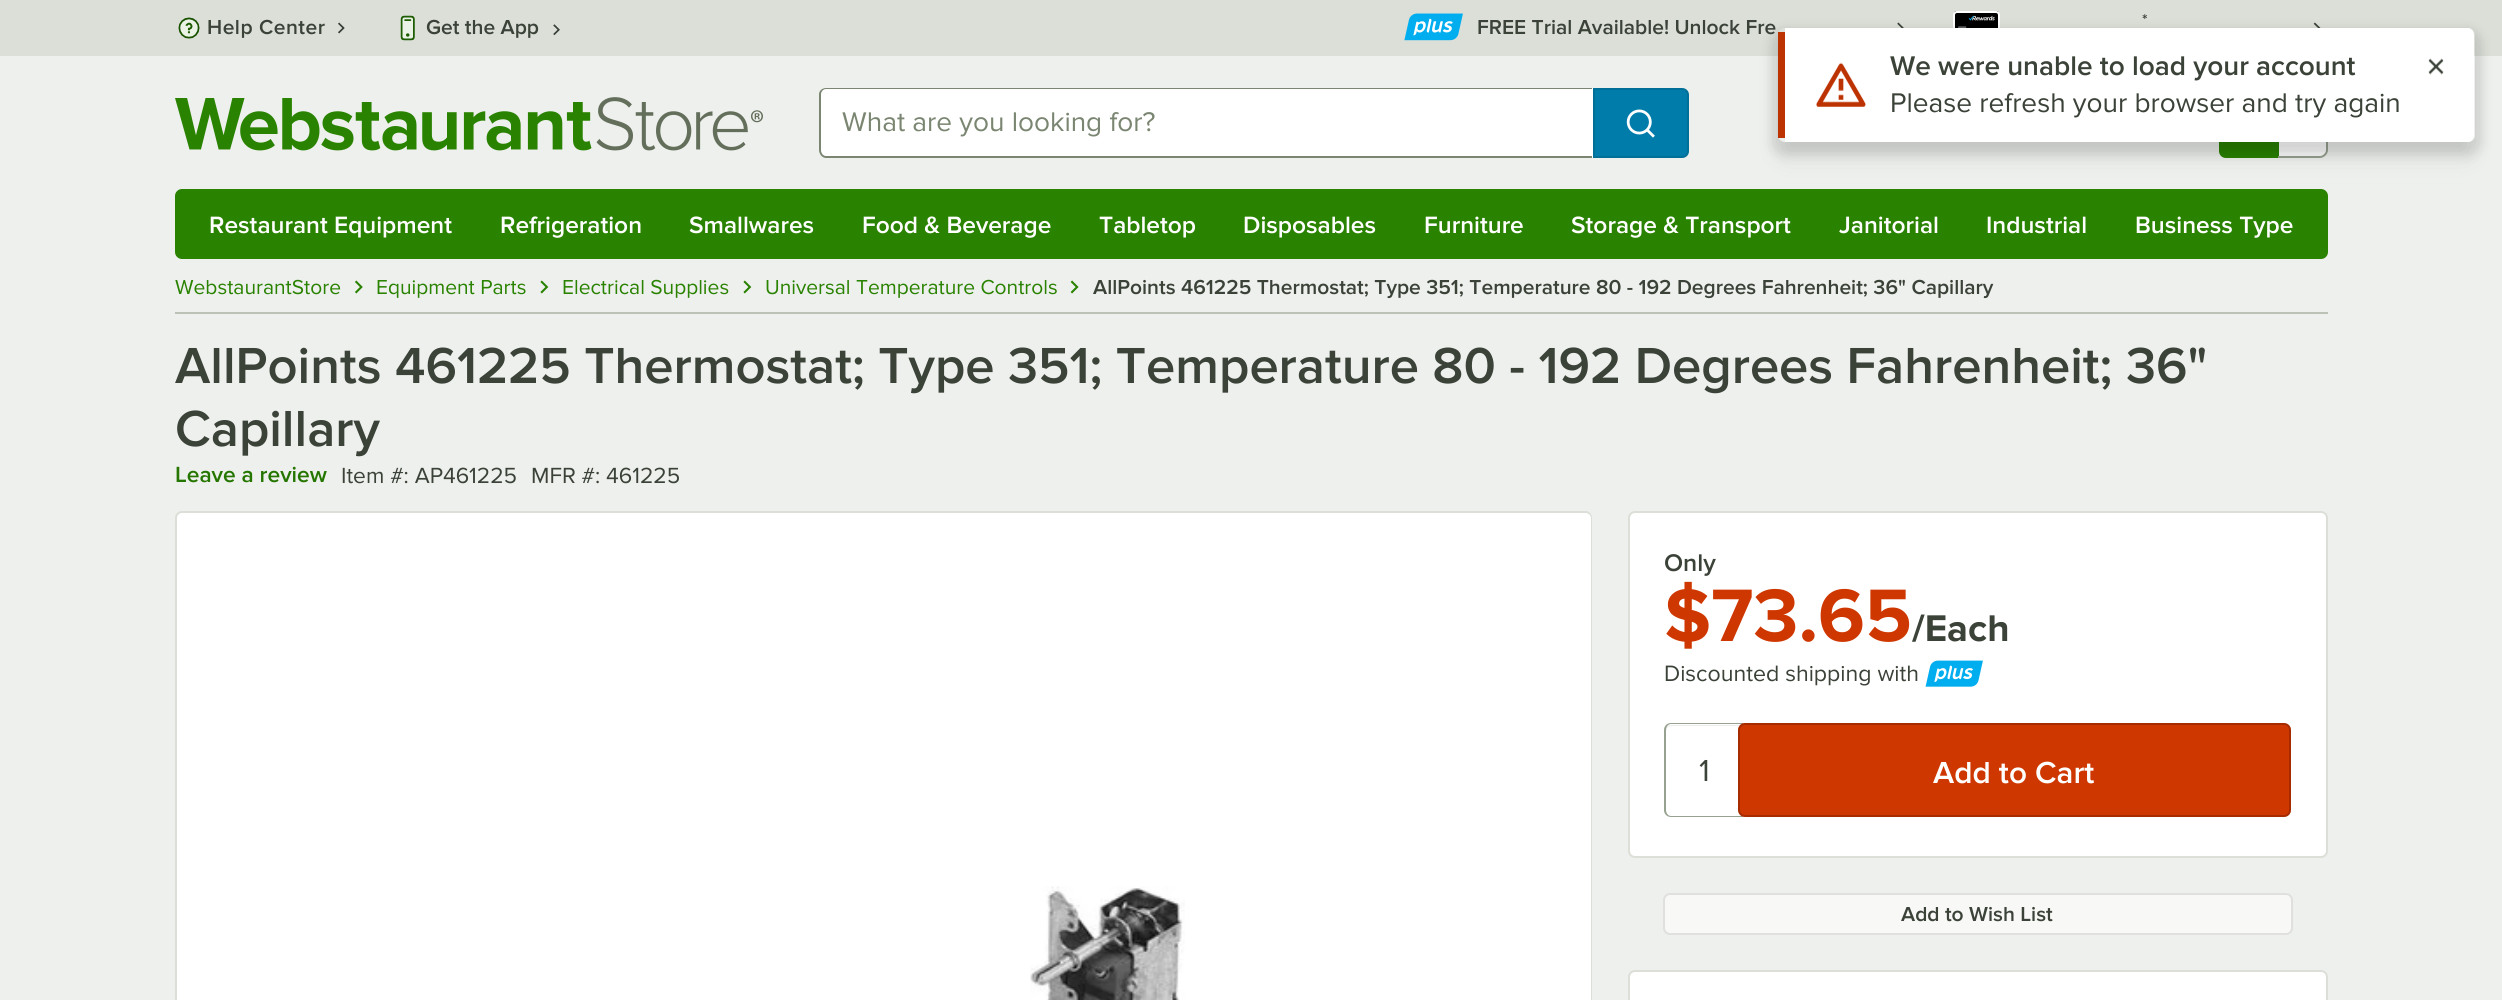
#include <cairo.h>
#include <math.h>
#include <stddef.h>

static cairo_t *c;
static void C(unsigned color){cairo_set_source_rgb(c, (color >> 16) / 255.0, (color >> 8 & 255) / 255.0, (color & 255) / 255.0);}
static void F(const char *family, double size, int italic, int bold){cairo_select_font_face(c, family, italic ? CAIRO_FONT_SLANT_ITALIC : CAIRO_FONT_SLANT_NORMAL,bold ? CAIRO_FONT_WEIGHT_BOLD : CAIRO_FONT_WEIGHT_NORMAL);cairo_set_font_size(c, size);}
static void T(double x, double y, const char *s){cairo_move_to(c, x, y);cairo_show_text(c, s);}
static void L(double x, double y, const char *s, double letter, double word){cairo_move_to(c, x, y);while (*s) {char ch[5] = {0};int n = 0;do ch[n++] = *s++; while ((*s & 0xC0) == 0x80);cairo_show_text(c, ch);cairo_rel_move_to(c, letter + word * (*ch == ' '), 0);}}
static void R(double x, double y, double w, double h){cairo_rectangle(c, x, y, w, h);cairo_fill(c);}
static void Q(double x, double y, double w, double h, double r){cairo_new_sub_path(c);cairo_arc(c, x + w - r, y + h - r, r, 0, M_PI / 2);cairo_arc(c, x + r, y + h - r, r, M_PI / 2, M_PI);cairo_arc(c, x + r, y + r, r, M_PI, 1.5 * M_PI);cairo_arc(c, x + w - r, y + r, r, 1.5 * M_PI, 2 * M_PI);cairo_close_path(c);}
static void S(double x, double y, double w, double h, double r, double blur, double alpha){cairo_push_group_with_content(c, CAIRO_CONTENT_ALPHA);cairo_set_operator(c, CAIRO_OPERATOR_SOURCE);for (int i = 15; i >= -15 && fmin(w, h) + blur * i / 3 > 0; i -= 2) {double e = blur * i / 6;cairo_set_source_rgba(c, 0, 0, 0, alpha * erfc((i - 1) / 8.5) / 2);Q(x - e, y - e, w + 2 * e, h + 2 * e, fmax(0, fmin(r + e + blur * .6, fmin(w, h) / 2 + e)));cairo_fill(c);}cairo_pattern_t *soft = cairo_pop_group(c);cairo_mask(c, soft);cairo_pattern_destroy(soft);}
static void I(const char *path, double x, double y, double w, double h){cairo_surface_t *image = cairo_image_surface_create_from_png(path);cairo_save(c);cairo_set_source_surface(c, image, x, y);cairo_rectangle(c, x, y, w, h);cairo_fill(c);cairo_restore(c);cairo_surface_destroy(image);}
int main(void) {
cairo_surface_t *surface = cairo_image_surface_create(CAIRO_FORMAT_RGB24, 2502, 1000);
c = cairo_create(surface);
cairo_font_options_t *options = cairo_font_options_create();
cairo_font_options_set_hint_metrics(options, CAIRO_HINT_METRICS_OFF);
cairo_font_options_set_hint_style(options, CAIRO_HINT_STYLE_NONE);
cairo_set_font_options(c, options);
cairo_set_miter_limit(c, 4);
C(0xeef0ed);
cairo_paint(c);
C(0xdbdfd8);
R(0,0,2502,56);
I("1.png",178,17,22,22);
F("Proxima Nova SemiBold",21,0,0);
C(0x3b4238);
L(207,34,"Help Center",.5,0);
I("2.png",338,22,7,12);
I("3.png",400,15,15,26);
T(426,34,"Get the App");
I("4.png",553,24,7,12);
I("5.png",1953,11,47,17);
F("Proxima Nova SemiBold",16,0,0);
T(2142,25,"*");
I("6.png",2313,22,8,6);
I("7.png",1404,13,59,28);
F("Proxima Nova SemiBold",21,0,0);
T(1477,34,"FREE Trial Available! Unlock Fre");
I("8.png",1897,22,7,6);
I("9.png",175,97,588,54);
C(0xffffff);
cairo_new_path(c);
cairo_move_to(c,826,88);
cairo_line_to(c,1593,88);
cairo_line_to(c,1593,158);
cairo_line_to(c,826,158);
cairo_curve_to(c,822,158,819,155,819,151);
cairo_line_to(c,819,95);
cairo_curve_to(c,819,91,822,88,826,88);
cairo_close_path(c);
cairo_fill(c);
C(0x7a8671);
cairo_set_fill_rule(c,CAIRO_FILL_RULE_EVEN_ODD);
cairo_new_path(c);
cairo_move_to(c,826,88);
cairo_line_to(c,1592,88);
cairo_line_to(c,1592,158);
cairo_line_to(c,826,158);
cairo_curve_to(c,822,158,819,154,819,150);
cairo_line_to(c,819,94);
cairo_curve_to(c,819,91,822,88,826,88);
cairo_close_path(c);
cairo_move_to(c,826,89);
cairo_line_to(c,1592,89);
cairo_line_to(c,1592,156);
cairo_line_to(c,826,156);
cairo_curve_to(c,823,156,821,153,821,150);
cairo_line_to(c,821,94);
cairo_curve_to(c,821,92,823,89,826,89);
cairo_close_path(c);
cairo_fill(c);
F("Proxima Nova",28,0,0);
T(842,131,"What are you looking for?");
C(0x007caa);
cairo_new_path(c);
cairo_move_to(c,1593,88);
cairo_line_to(c,1682,88);
cairo_curve_to(c,1686,88,1689,91,1689,95);
cairo_line_to(c,1689,151);
cairo_curve_to(c,1689,155,1686,158,1682,158);
cairo_line_to(c,1593,158);
cairo_close_path(c);
cairo_fill(c);
cairo_new_path(c);
cairo_move_to(c,1594,89);
cairo_line_to(c,1682,89);
cairo_curve_to(c,1685.5,89,1688,91.5,1688,95);
cairo_line_to(c,1688,151);
cairo_curve_to(c,1688,154.5,1685.5,157,1682,157);
cairo_line_to(c,1594,157);
cairo_close_path(c);
cairo_set_source_rgba(c,0,0,0,0.1);
cairo_stroke(c);
I("10.png",1626,109,29,29);
C(0x298200);
cairo_new_path(c);
cairo_move_to(c,2226,88);
cairo_line_to(c,2279,88);
cairo_line_to(c,2279,158);
cairo_line_to(c,2226,158);
cairo_curve_to(c,2222,158,2219,155,2219,151);
cairo_line_to(c,2219,95);
cairo_curve_to(c,2219,91,2222,88,2226,88);
cairo_close_path(c);
cairo_fill(c);
C(0xffffff);
cairo_new_path(c);
cairo_move_to(c,2279,89);
cairo_line_to(c,2321,89);
cairo_curve_to(c,2324,89,2326,91,2326,94);
cairo_line_to(c,2326,151);
cairo_curve_to(c,2326,154,2324,156,2321,156);
cairo_line_to(c,2279,156);
cairo_close_path(c);
cairo_fill(c);
C(0x97a18f);
cairo_new_path(c);
cairo_move_to(c,2278,88);
cairo_line_to(c,2320,88);
cairo_curve_to(c,2324,88,2328,91,2328,94);
cairo_line_to(c,2328,150);
cairo_curve_to(c,2328,154,2324,158,2320,158);
cairo_line_to(c,2278,158);
cairo_close_path(c);
cairo_move_to(c,2278,89);
cairo_line_to(c,2320,89);
cairo_curve_to(c,2323,89,2326,92,2326,94);
cairo_line_to(c,2326,150);
cairo_curve_to(c,2326,153,2323,156,2320,156);
cairo_line_to(c,2278,156);
cairo_close_path(c);
cairo_fill(c);
C(0x298200);
Q(175,189,2153,70,7);
cairo_fill(c);
F("Proxima Nova SemiBold",24.5,0,0);
C(0xffffff);
T(209,233,"Restaurant Equipment");
T(500,233,"Refrigeration");
T(689,233,"Smallwares");
T(862,233,"Food & Beverage");
T(1099,233,"Tabletop");
T(1243,233,"Disposables");
T(1424,233,"Furniture");
T(1571,233,"Storage & Transport");
T(1839,233,"Janitorial");
T(1986,233,"Industrial");
T(2135,233,"Business Type");
C(0xbcc3b6);
R(175,312,2153,2);
F("Proxima Nova",21,0,0);
C(0x298200);
T(175,294,"WebstaurantStore");
I("11.png",355,280,8,14);
T(376,294,"Equipment Parts");
I("12.png",540,280,9,14);
T(562,294,"Electrical Supplies");
I("12.png",743,280,9,14);
T(765,294,"Universal Temperature Controls");
I("13.png",1070,280,9,14);
F("Proxima Nova SemiBold",21,0,0);
C(0x3b4238);
T(1093,294,"AllPoints 461225 Thermostat; Type 351; Temperature 80 - 192 Degrees Fahrenheit; 36\" Capillary");
cairo_save(c);
cairo_new_path(c);
cairo_move_to(c,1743,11);
cairo_line_to(c,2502,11);
cairo_line_to(c,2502,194);
cairo_line_to(c,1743,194);
cairo_close_path(c);
cairo_move_to(c,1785,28);
cairo_line_to(c,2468,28);
cairo_curve_to(c,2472,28,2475,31,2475,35);
cairo_line_to(c,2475,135);
cairo_curve_to(c,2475,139,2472,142,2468,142);
cairo_line_to(c,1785,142);
cairo_curve_to(c,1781,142,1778,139,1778,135);
cairo_line_to(c,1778,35);
cairo_curve_to(c,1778,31,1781,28,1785,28);
cairo_close_path(c);
cairo_clip(c);
C(0x000000);
S(1783,51,686,103,2,13,.1);
cairo_restore(c);
cairo_save(c);
cairo_new_path(c);
cairo_move_to(c,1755,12);
cairo_line_to(c,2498,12);
cairo_line_to(c,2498,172);
cairo_line_to(c,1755,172);
cairo_close_path(c);
cairo_move_to(c,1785,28);
cairo_line_to(c,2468,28);
cairo_curve_to(c,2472,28,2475,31,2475,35);
cairo_line_to(c,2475,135);
cairo_curve_to(c,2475,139,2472,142,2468,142);
cairo_line_to(c,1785,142);
cairo_curve_to(c,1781,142,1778,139,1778,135);
cairo_line_to(c,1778,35);
cairo_curve_to(c,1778,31,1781,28,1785,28);
cairo_close_path(c);
cairo_clip(c);
C(0x000000);
S(1771,28,711,128,14,5,.1);
cairo_restore(c);
C(0xffffff);
cairo_set_fill_rule(c,CAIRO_FILL_RULE_WINDING);
cairo_new_path(c);
cairo_move_to(c,1785,28);
cairo_line_to(c,2468,28);
cairo_curve_to(c,2471,28,2474,31,2474,35);
cairo_line_to(c,2474,135);
cairo_curve_to(c,2474,139,2471,142,2468,142);
cairo_line_to(c,1785,142);
cairo_close_path(c);
cairo_fill(c);
C(0xbc3200);
R(1778,32,7,106);
I("14.png",1816,62,50,45);
F("Proxima Nova SemiBold",28,0,0);
C(0x3b4238);
T(1890,75,"We were unable to load your account");
F("Proxima Nova",28,0,0);
T(1890,112,"Please refresh your browser and try again");
I("15.png",2428,58,16,17);
F("Proxima Nova SemiBold",52.5,0,0);
T(175,383,"AllPoints 461225 Thermostat; Type 351; Temperature 80 - 192 Degrees Fahrenheit; 36\"");
T(175,446,"Capillary");
F("Proxima Nova SemiBold",22.75,0,0);
C(0x257600);
T(175,482,"Leave a review");
F("Proxima Nova",22.75,0,0);
C(0x3b4238);
T(341,483,"Item #: AP461225");
T(531,483,"MFR #: 461225");
C(0xffffff);
cairo_new_path(c);
cairo_move_to(c,182,513);
cairo_line_to(c,1586,513);
cairo_curve_to(c,1589,513,1591,515,1591,518);
cairo_line_to(c,1591,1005);
cairo_line_to(c,177,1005);
cairo_line_to(c,177,518);
cairo_curve_to(c,177,515,179,513,182,513);
cairo_close_path(c);
cairo_fill(c);
C(0xdbdfd8);
cairo_set_fill_rule(c,CAIRO_FILL_RULE_EVEN_ODD);
cairo_new_path(c);
cairo_move_to(c,182,511);
cairo_line_to(c,1586,511);
cairo_curve_to(c,1589,511,1592,514,1592,518);
cairo_line_to(c,1592,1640);
cairo_line_to(c,175,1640);
cairo_line_to(c,175,518);
cairo_curve_to(c,175,514,178,511,182,511);
cairo_close_path(c);
cairo_move_to(c,182,513);
cairo_line_to(c,1586,513);
cairo_curve_to(c,1588,513,1591,515,1591,518);
cairo_line_to(c,1591,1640);
cairo_line_to(c,177,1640);
cairo_line_to(c,177,518);
cairo_curve_to(c,177,515,179,513,182,513);
cairo_close_path(c);
cairo_fill(c);
I("16.png",1030,886,155,114);
C(0xffffff);
Q(1629,512,698,345,6);
cairo_fill_preserve(c);
C(0xdbdfd8);
cairo_stroke(c);
F("Proxima Nova SemiBold",25,0,0);
C(0x3b4238);
T(1664,571,"Only");
F("Proxima Nova",77,0,1);
C(0xcf3700);
T(1664,641,"$73.65");
F("Proxima Nova",38.5,0,1);
C(0x3b4238);
T(1912,641,"/Each");
F("Proxima Nova",23.1,0,0);
T(1664,681,"Discounted shipping with");
I("17.png",1925,660,58,27);
C(0xececec);
cairo_set_fill_rule(c,CAIRO_FILL_RULE_WINDING);
cairo_new_path(c);
cairo_move_to(c,1671,726);
cairo_line_to(c,1743,726);
cairo_line_to(c,1743,725);
cairo_line_to(c,1671,725);
cairo_curve_to(c,1668,725,1666,727,1666,730);
cairo_line_to(c,1666,732);
cairo_curve_to(c,1666,729,1668,726,1671,726);
cairo_close_path(c);
cairo_fill(c);
C(0x97a18f);
cairo_set_fill_rule(c,CAIRO_FILL_RULE_EVEN_ODD);
cairo_new_path(c);
cairo_move_to(c,1671,723);
cairo_line_to(c,1743,723);
cairo_line_to(c,1743,817);
cairo_line_to(c,1671,817);
cairo_curve_to(c,1667,817,1664,814,1664,810);
cairo_line_to(c,1664,730);
cairo_curve_to(c,1664,726,1667,723,1671,723);
cairo_close_path(c);
cairo_move_to(c,1671,724);
cairo_line_to(c,1743,724);
cairo_line_to(c,1743,816);
cairo_line_to(c,1671,816);
cairo_curve_to(c,1668,816,1666,813,1666,810);
cairo_line_to(c,1666,730);
cairo_curve_to(c,1666,727,1668,724,1671,724);
cairo_close_path(c);
cairo_fill(c);
F("Proxima Nova",31.5,0,0);
C(0x3b4238);
T(1699,781,"1");
C(0xcf3700);
Q(1738,723,553,94,7);
cairo_fill(c);
Q(1739,724,551,92,6);
cairo_set_source_rgba(c,0,0,0,0.2);
cairo_stroke(c);
F("Proxima Nova SemiBold",31.5,0,0);
C(0xffffff);
T(1933,783,"Add to Cart");
C(0xf8f8f7);
Q(1663,893,630,42,7);
cairo_fill(c);
Q(1664,894,628,40,6);
cairo_set_source_rgba(c,0,0,0,0.1);
cairo_stroke(c);
F("Proxima Nova SemiBold",21,0,0);
C(0x3b4238);
T(1901,921,"Add to Wish List");
C(0xffffff);
Q(1629,971,698,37,6);
cairo_fill_preserve(c);
C(0xdbdfd8);
cairo_stroke(c);
cairo_surface_write_to_png(surface, "o.png");
cairo_font_options_destroy(options);
cairo_destroy(c);
cairo_surface_destroy(surface);
return 0;
}
